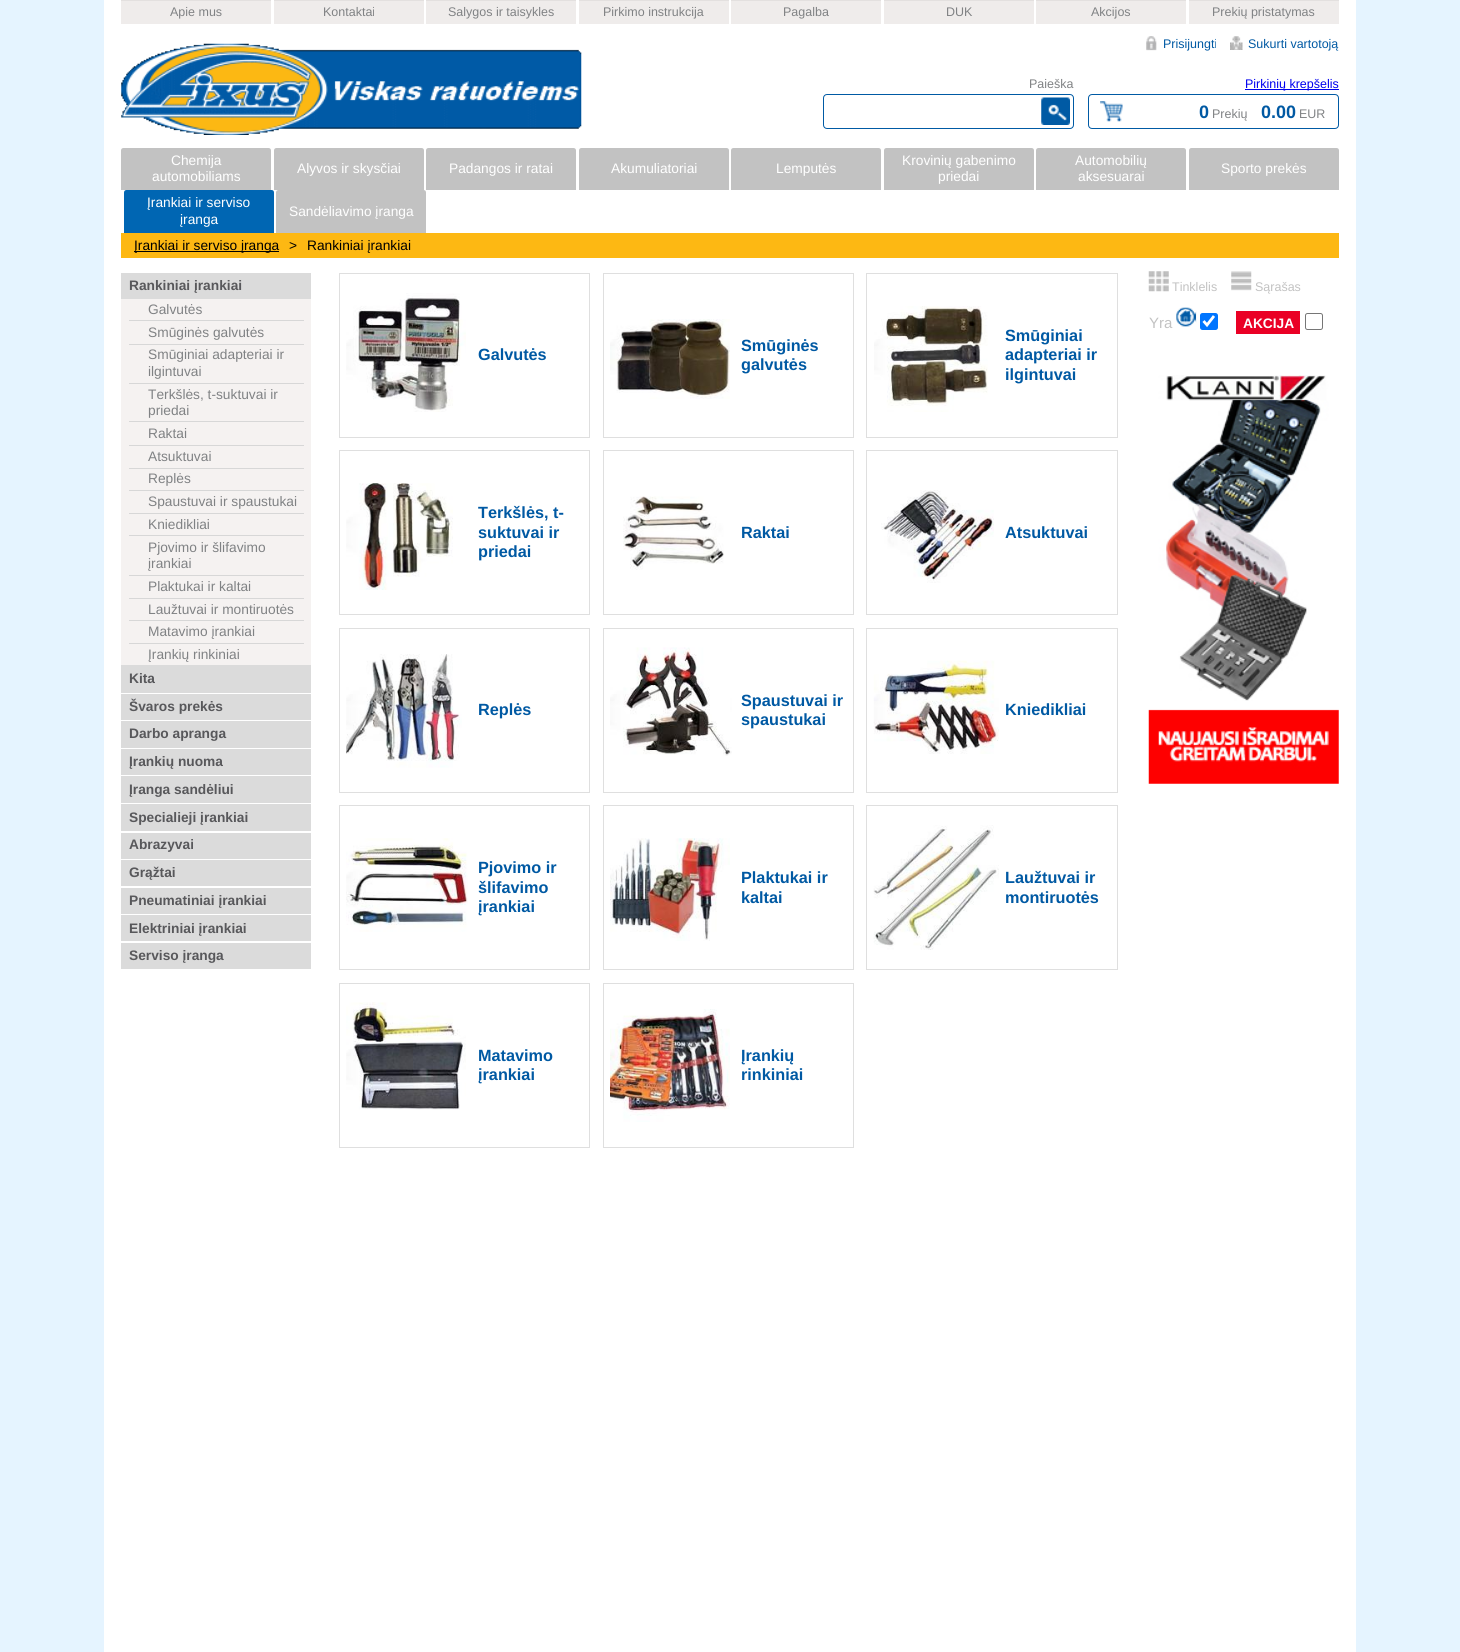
#include <cairo.h>
#include <math.h>
#include <stddef.h>

static cairo_t *c;
static void C(unsigned color){cairo_set_source_rgb(c, (color >> 16) / 255.0, (color >> 8 & 255) / 255.0, (color & 255) / 255.0);}
static void F(const char *family, double size, int italic, int bold){cairo_select_font_face(c, family, italic ? CAIRO_FONT_SLANT_ITALIC : CAIRO_FONT_SLANT_NORMAL,bold ? CAIRO_FONT_WEIGHT_BOLD : CAIRO_FONT_WEIGHT_NORMAL);cairo_set_font_size(c, size);}
static void T(double x, double y, const char *s){cairo_move_to(c, x, y);cairo_show_text(c, s);}
static void R(double x, double y, double w, double h){cairo_rectangle(c, x, y, w, h);cairo_fill(c);}
static void Q(double x, double y, double w, double h, double r){cairo_new_sub_path(c);cairo_arc(c, x + w - r, y + h - r, r, 0, M_PI / 2);cairo_arc(c, x + r, y + h - r, r, M_PI / 2, M_PI);cairo_arc(c, x + r, y + r, r, M_PI, 1.5 * M_PI);cairo_arc(c, x + w - r, y + r, r, 1.5 * M_PI, 2 * M_PI);cairo_close_path(c);}
static void I(const char *path, double x, double y, double w, double h){cairo_surface_t *image = cairo_image_surface_create_from_png(path);cairo_save(c);cairo_set_source_surface(c, image, x, y);cairo_rectangle(c, x, y, w, h);cairo_fill(c);cairo_restore(c);cairo_surface_destroy(image);}
int main(void) {
cairo_surface_t *surface = cairo_image_surface_create(CAIRO_FORMAT_RGB24, 1460, 1652);
c = cairo_create(surface);
cairo_font_options_t *options = cairo_font_options_create();
cairo_font_options_set_hint_metrics(options, CAIRO_HINT_METRICS_OFF);
cairo_font_options_set_hint_style(options, CAIRO_HINT_STYLE_NONE);
cairo_set_font_options(c, options);
cairo_set_miter_limit(c, 4);
C(0xe5f4ff);
cairo_paint(c);
C(0xffffff);
R(104,0,1252,1652);
C(0xefeceb);
R(121,1,150,23);
C(0xe3e0df);
R(121,0,150,1);
F("Liberation Sans",12.5,0,0);
C(0x808284);
T(170,16,"Apie mus");
C(0xefeceb);
R(274,1,150,23);
C(0xe3e0df);
R(274,0,150,1);
C(0x808284);
T(323,16,"Kontaktai");
C(0xefeceb);
R(426,1,150,23);
C(0xe3e0df);
R(426,0,150,1);
C(0x808284);
T(448,16,"Salygos ir taisykles");
C(0xefeceb);
R(579,1,150,23);
C(0xe3e0df);
R(579,0,150,1);
C(0x808284);
T(603,16,"Pirkimo instrukcija");
C(0xefeceb);
R(731,1,150,23);
C(0xe3e0df);
R(731,0,150,1);
C(0x808284);
T(783,16,"Pagalba");
C(0xefeceb);
R(884,1,150,23);
C(0xe3e0df);
R(884,0,150,1);
C(0x808284);
T(946,16,"DUK");
C(0xefeceb);
R(1036,1,150,23);
C(0xe3e0df);
R(1036,0,150,1);
C(0x808284);
T(1091,16,"Akcijos");
C(0xefeceb);
R(1189,1,150,23);
C(0xe3e0df);
R(1189,0,150,1);
C(0x808284);
T(1212,16,"Prekių pristatymas");
I("1.png",121,43,461,92);
T(1029,88,"Paieška");
Q(823.5,94.5,250,34,3.5);
C(0x005aa4);
cairo_set_line_width(c,1);
cairo_stroke(c);
I("2.png",1041,97,29,28);
I("3.png",1146,36,11,15);
C(0x0059a3);
T(1163,48,"Prisijungti");
I("4.png",1230,36,13,14);
T(1248,48,"Sukurti vartotoją");
C(0x0000ee);
R(1245,89,94,1);
T(1245,88,"Pirkinių krepšelis");
I("5.png",1100,101,23,21);
Q(1088.5,94.5,250,34,3.5);
C(0x005aa4);
cairo_stroke(c);
F("Liberation Sans",18,0,1);
C(0x0059a3);
T(1199,118,"0");
F("Liberation Sans",12.5,0,0);
C(0x808284);
T(1212,118,"Prekių");
F("Liberation Sans",18,0,1);
C(0x0059a3);
T(1261,118,"0.00");
F("Liberation Sans",12.5,0,0);
C(0x808284);
T(1299,118,"EUR");
C(0xc2c2c2);
cairo_new_path(c);
cairo_move_to(c,123.5,148);
cairo_line_to(c,268.5,148);
cairo_curve_to(c,270,148,271,149,271,150.5);
cairo_line_to(c,271,190);
cairo_line_to(c,121,190);
cairo_line_to(c,121,150.5);
cairo_curve_to(c,121,149,122,148,123.5,148);
cairo_close_path(c);
cairo_fill(c);
F("Liberation Sans",13.75,0,0);
C(0xffffff);
T(171,165,"Chemija");
T(152,181,"automobiliams");
C(0xc2c2c2);
cairo_new_path(c);
cairo_move_to(c,276.5,148);
cairo_line_to(c,421.5,148);
cairo_curve_to(c,423,148,424,149,424,150.5);
cairo_line_to(c,424,190);
cairo_line_to(c,274,190);
cairo_line_to(c,274,150.5);
cairo_curve_to(c,274,149,275,148,276.5,148);
cairo_close_path(c);
cairo_fill(c);
C(0xffffff);
T(297,173,"Alyvos ir skysčiai");
C(0xc2c2c2);
cairo_new_path(c);
cairo_move_to(c,428.5,148);
cairo_line_to(c,573.5,148);
cairo_curve_to(c,575,148,576,149,576,150.5);
cairo_line_to(c,576,190);
cairo_line_to(c,426,190);
cairo_line_to(c,426,150.5);
cairo_curve_to(c,426,149,427,148,428.5,148);
cairo_close_path(c);
cairo_fill(c);
C(0xffffff);
T(449,173,"Padangos ir ratai");
C(0xc2c2c2);
cairo_new_path(c);
cairo_move_to(c,581.5,148);
cairo_line_to(c,726.5,148);
cairo_curve_to(c,728,148,729,149,729,150.5);
cairo_line_to(c,729,190);
cairo_line_to(c,579,190);
cairo_line_to(c,579,150.5);
cairo_curve_to(c,579,149,580,148,581.5,148);
cairo_close_path(c);
cairo_fill(c);
C(0xffffff);
T(611,173,"Akumuliatoriai");
C(0xc2c2c2);
cairo_new_path(c);
cairo_move_to(c,733.5,148);
cairo_line_to(c,878.5,148);
cairo_curve_to(c,880,148,881,149,881,150.5);
cairo_line_to(c,881,190);
cairo_line_to(c,731,190);
cairo_line_to(c,731,150.5);
cairo_curve_to(c,731,149,732,148,733.5,148);
cairo_close_path(c);
cairo_fill(c);
C(0xffffff);
T(776,173,"Lemputės");
C(0xc2c2c2);
cairo_new_path(c);
cairo_move_to(c,886.5,148);
cairo_line_to(c,1031.5,148);
cairo_curve_to(c,1033,148,1034,149,1034,150.5);
cairo_line_to(c,1034,190);
cairo_line_to(c,884,190);
cairo_line_to(c,884,150.5);
cairo_curve_to(c,884,149,885,148,886.5,148);
cairo_close_path(c);
cairo_fill(c);
C(0xffffff);
T(902,165,"Krovinių gabenimo");
T(938,181,"priedai");
C(0xc2c2c2);
cairo_new_path(c);
cairo_move_to(c,1038.5,148);
cairo_line_to(c,1183.5,148);
cairo_curve_to(c,1185,148,1186,149,1186,150.5);
cairo_line_to(c,1186,190);
cairo_line_to(c,1036,190);
cairo_line_to(c,1036,150.5);
cairo_curve_to(c,1036,149,1037,148,1038.5,148);
cairo_close_path(c);
cairo_fill(c);
C(0xffffff);
T(1075,165,"Automobilių");
T(1078,181,"aksesuarai");
C(0xc2c2c2);
cairo_new_path(c);
cairo_move_to(c,1191.5,148);
cairo_line_to(c,1336.5,148);
cairo_curve_to(c,1338,148,1339,149,1339,150.5);
cairo_line_to(c,1339,190);
cairo_line_to(c,1189,190);
cairo_line_to(c,1189,150.5);
cairo_curve_to(c,1189,149,1190,148,1191.5,148);
cairo_close_path(c);
cairo_fill(c);
C(0xffffff);
T(1221,173,"Sporto prekės");
C(0x0066b3);
cairo_new_path(c);
cairo_move_to(c,126.5,190);
cairo_line_to(c,271.5,190);
cairo_curve_to(c,273,190,274,191,274,192.5);
cairo_line_to(c,274,233);
cairo_line_to(c,124,233);
cairo_line_to(c,124,192.5);
cairo_curve_to(c,124,191,125,190,126.5,190);
cairo_close_path(c);
cairo_fill(c);
C(0xffffff);
T(147,207,"Įrankiai ir serviso");
T(180,224,"įranga");
C(0xc2c2c2);
cairo_new_path(c);
cairo_move_to(c,278.5,190);
cairo_line_to(c,423.5,190);
cairo_curve_to(c,425,190,426,191,426,192.5);
cairo_line_to(c,426,233);
cairo_line_to(c,276,233);
cairo_line_to(c,276,192.5);
cairo_curve_to(c,276,191,277,190,278.5,190);
cairo_close_path(c);
cairo_fill(c);
C(0xffffff);
T(289,216,"Sandėliavimo įranga");
C(0xfdb813);
R(121,233,1218,25);
C(0x000000);
R(134,251,145,1);
T(134,250,"Įrankiai ir serviso įranga");
T(289,250,">");
T(307,250,"Rankiniai įrankiai");
C(0xdbdbdb);
R(121,273,190,26);
F("Liberation Sans",13.75,0,1);
C(0x58585b);
T(129,290,"Rankiniai įrankiai");
C(0xf5f2f1);
R(121,299,190,366);
F("Liberation Sans",13.75,0,0);
C(0x808284);
T(148,314,"Galvutės");
C(0xd7d7d7);
R(129,320,175,1);
C(0x808284);
T(148,337,"Smūginės galvutės");
C(0xd7d7d7);
R(129,344,175,1);
C(0x808284);
T(148,359,"Smūginiai adapteriai ir");
T(148,376,"ilgintuvai");
C(0xd7d7d7);
R(129,383,175,1);
C(0x808284);
T(148,399,"Terkšlės, t-suktuvai ir");
T(148,415,"priedai");
C(0xd7d7d7);
R(129,421,175,1);
C(0x808284);
T(148,438,"Raktai");
C(0xd7d7d7);
R(129,445,175,1);
C(0x808284);
T(148,461,"Atsuktuvai");
C(0xd7d7d7);
R(129,468,175,1);
C(0x808284);
T(148,483,"Replės");
C(0xd7d7d7);
R(129,490,175,1);
C(0x808284);
T(148,506,"Spaustuvai ir spaustukai");
C(0xd7d7d7);
R(129,513,175,1);
C(0x808284);
T(148,529,"Kniedikliai");
C(0xd7d7d7);
R(129,535,175,1);
C(0x808284);
T(148,552,"Pjovimo ir šlifavimo");
T(148,568,"įrankiai");
C(0xd7d7d7);
R(129,575,175,1);
C(0x808284);
T(148,591,"Plaktukai ir kaltai");
C(0xd7d7d7);
R(129,598,175,1);
C(0x808284);
T(148,614,"Laužtuvai ir montiruotės");
C(0xd7d7d7);
R(129,620,175,1);
C(0x808284);
T(148,636,"Matavimo įrankiai");
C(0xd7d7d7);
R(129,643,175,1);
C(0x808284);
T(148,659,"Įrankių rinkiniai");
C(0xdbdbdb);
R(121,665,190,28);
F("Liberation Sans",13.75,0,1);
C(0x58585b);
T(129,683,"Kita");
C(0xdbdbdb);
R(121,694,190,26);
C(0x58585b);
T(129,711,"Švaros prekės");
C(0xdbdbdb);
R(121,721,190,27);
C(0x58585b);
T(129,738,"Darbo apranga");
C(0xdbdbdb);
R(121,749,190,26);
C(0x58585b);
T(129,766,"Įrankių nuoma");
C(0xdbdbdb);
R(121,776,190,27);
C(0x58585b);
T(129,794,"Įranga sandėliui");
C(0xdbdbdb);
R(121,804,190,27);
C(0x58585b);
T(129,822,"Specialieji įrankiai");
C(0xdbdbdb);
R(121,833,190,26);
C(0x58585b);
T(129,849,"Abrazyvai");
C(0xdbdbdb);
R(121,860,190,26);
C(0x58585b);
T(129,877,"Grąžtai");
C(0xdbdbdb);
R(121,888,190,26);
C(0x58585b);
T(129,905,"Pneumatiniai įrankiai");
C(0xdbdbdb);
R(121,915,190,26);
C(0x58585b);
T(129,933,"Elektriniai įrankiai");
C(0xdbdbdb);
R(121,943,190,26);
C(0x58585b);
T(129,960,"Serviso įranga");
I("6.png",1148,271,21,21);
F("Liberation Sans",12.5,0,0);
C(0xc2c2c2);
T(1172,291,"Tinklelis");
I("7.png",1231,271,21,20);
T(1255,291,"Sąrašas");
F("Liberation Sans",15,0,0);
T(1149,328,"Yra");
I("8.png",1176,307,21,20);
C(0x0075ff);
Q(1200,313,18,17,2.5);
cairo_fill(c);
cairo_new_path(c);
cairo_move_to(c,1203.5,321);
cairo_line_to(c,1207,325);
cairo_line_to(c,1214,316);
C(0xffffff);
cairo_set_line_width(c,2.8);
cairo_stroke(c);
C(0xea0025);
R(1236,311,64,23);
F("Liberation Sans",13.75,0,1);
C(0xffffff);
T(1243,328,"AKCIJA");
Q(1305.5,313.5,17,16,2);
C(0x767676);
cairo_set_line_width(c,1);
cairo_stroke(c);
I("9.png",1148,375,191,409);
cairo_rectangle(c,339.5,273.5,250,164);
C(0xdfdfdf);
cairo_stroke(c);
I("10.png",346,293,120,119);
F("Liberation Sans",16.25,0,1);
C(0x0059a3);
T(478,360,"Galvutės");
cairo_rectangle(c,603.5,273.5,250,164);
C(0xdfdfdf);
cairo_stroke(c);
I("11.png",610,319,120,80);
C(0x0059a3);
T(741,351,"Smūginės");
T(741,370,"galvutės");
cairo_rectangle(c,866.5,273.5,251,164);
C(0xdfdfdf);
cairo_stroke(c);
I("12.png",874,306,114,106);
C(0x0059a3);
T(1005,341,"Smūginiai");
T(1005,360,"adapteriai ir");
T(1005,380,"ilgintuvai");
cairo_rectangle(c,339.5,450.5,250,164);
C(0xdfdfdf);
cairo_stroke(c);
I("13.png",346,483,107,107);
C(0x0059a3);
T(478,518,"Terkšlės, t-");
T(478,538,"suktuvai ir");
T(478,557,"priedai");
cairo_rectangle(c,603.5,450.5,250,164);
C(0xdfdfdf);
cairo_stroke(c);
I("14.png",623,496,101,74);
C(0x0059a3);
T(741,538,"Raktai");
cairo_rectangle(c,866.5,450.5,251,164);
C(0xdfdfdf);
cairo_stroke(c);
I("15.png",881,490,113,93);
C(0x0059a3);
T(1005,538,"Atsuktuvai");
cairo_rectangle(c,339.5,628.5,250,164);
C(0xdfdfdf);
cairo_stroke(c);
I("16.png",346,654,116,114);
C(0x0059a3);
T(478,715,"Replės");
cairo_rectangle(c,603.5,628.5,250,164);
C(0xdfdfdf);
cairo_stroke(c);
I("17.png",610,647,122,109);
C(0x0059a3);
T(741,706,"Spaustuvai ir");
T(741,725,"spaustukai");
cairo_rectangle(c,866.5,628.5,251,164);
C(0xdfdfdf);
cairo_stroke(c);
I("18.png",873,660,126,94);
C(0x0059a3);
T(1005,715,"Kniedikliai");
cairo_rectangle(c,339.5,805.5,250,164);
C(0xdfdfdf);
cairo_stroke(c);
I("19.png",346,838,122,94);
C(0x0059a3);
T(478,873,"Pjovimo ir");
T(478,893,"šlifavimo");
T(478,912,"įrankiai");
cairo_rectangle(c,603.5,805.5,250,164);
C(0xdfdfdf);
cairo_stroke(c);
I("20.png",610,838,120,103);
C(0x0059a3);
T(741,883,"Plaktukai ir");
T(741,903,"kaltai");
cairo_rectangle(c,866.5,805.5,251,164);
C(0xdfdfdf);
cairo_stroke(c);
I("21.png",873,825,126,125);
C(0x0059a3);
T(1005,883,"Laužtuvai ir");
T(1005,903,"montiruotės");
cairo_rectangle(c,339.5,983.5,250,164);
C(0xdfdfdf);
cairo_stroke(c);
I("22.png",346,1002,120,108);
C(0x0059a3);
T(478,1061,"Matavimo");
T(478,1080,"įrankiai");
cairo_rectangle(c,603.5,983.5,250,164);
C(0xdfdfdf);
cairo_stroke(c);
I("23.png",610,1009,120,113);
C(0x0059a3);
T(741,1061,"Įrankių");
T(741,1080,"rinkiniai");
cairo_surface_write_to_png(surface, "o.png");
cairo_font_options_destroy(options);
cairo_destroy(c);
cairo_surface_destroy(surface);
return 0;
}
